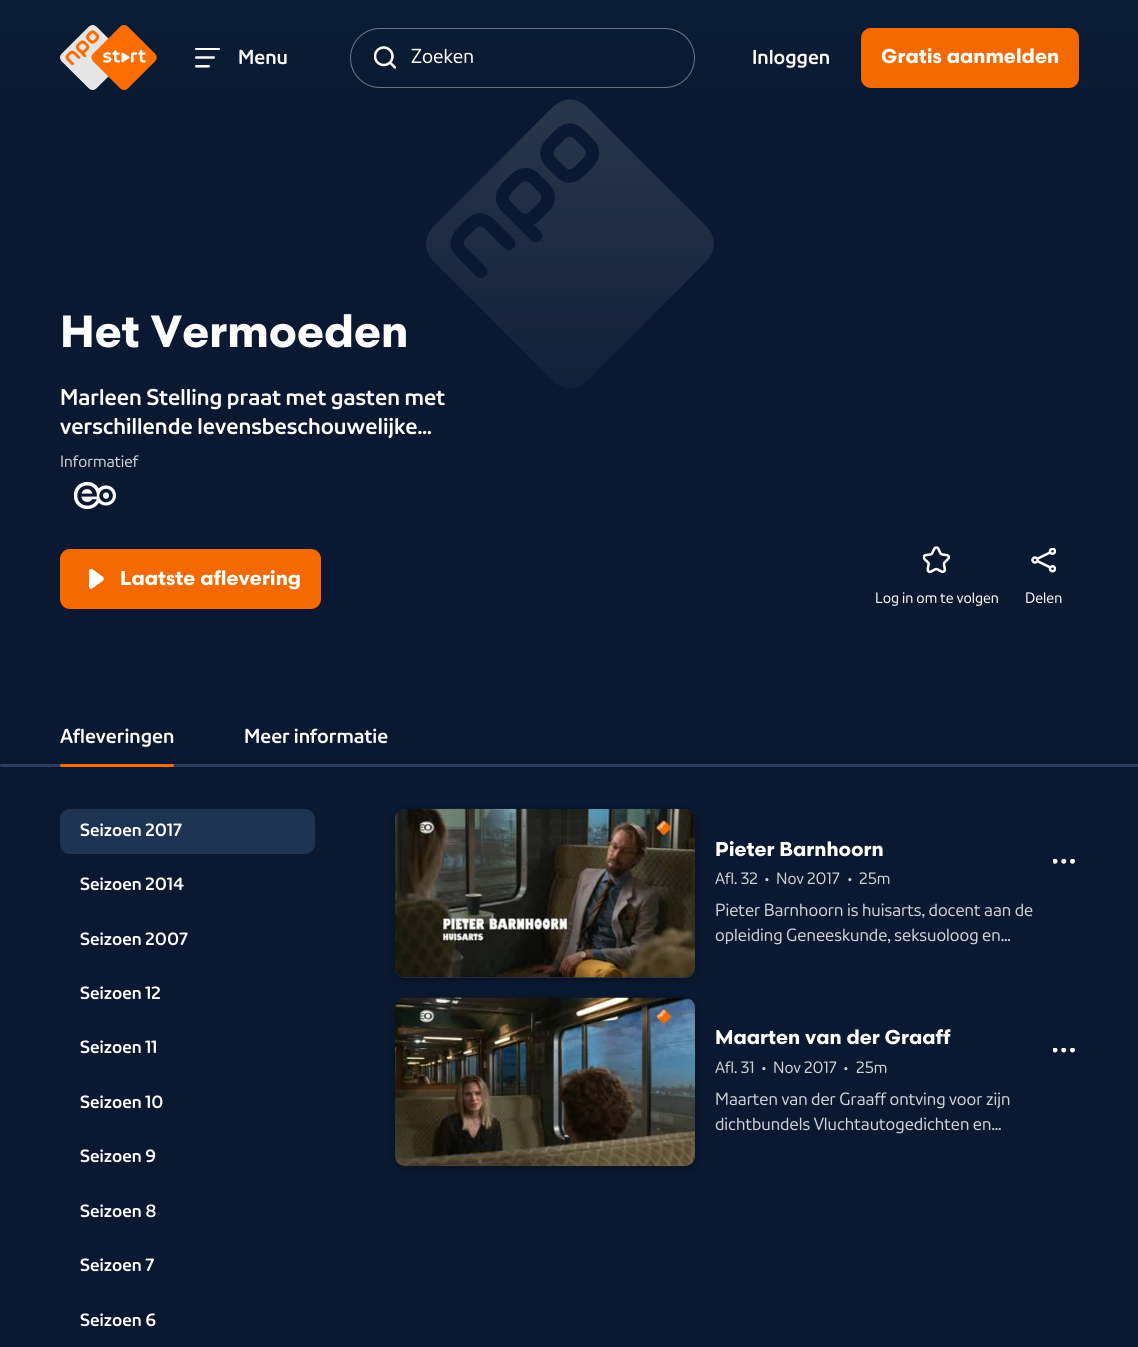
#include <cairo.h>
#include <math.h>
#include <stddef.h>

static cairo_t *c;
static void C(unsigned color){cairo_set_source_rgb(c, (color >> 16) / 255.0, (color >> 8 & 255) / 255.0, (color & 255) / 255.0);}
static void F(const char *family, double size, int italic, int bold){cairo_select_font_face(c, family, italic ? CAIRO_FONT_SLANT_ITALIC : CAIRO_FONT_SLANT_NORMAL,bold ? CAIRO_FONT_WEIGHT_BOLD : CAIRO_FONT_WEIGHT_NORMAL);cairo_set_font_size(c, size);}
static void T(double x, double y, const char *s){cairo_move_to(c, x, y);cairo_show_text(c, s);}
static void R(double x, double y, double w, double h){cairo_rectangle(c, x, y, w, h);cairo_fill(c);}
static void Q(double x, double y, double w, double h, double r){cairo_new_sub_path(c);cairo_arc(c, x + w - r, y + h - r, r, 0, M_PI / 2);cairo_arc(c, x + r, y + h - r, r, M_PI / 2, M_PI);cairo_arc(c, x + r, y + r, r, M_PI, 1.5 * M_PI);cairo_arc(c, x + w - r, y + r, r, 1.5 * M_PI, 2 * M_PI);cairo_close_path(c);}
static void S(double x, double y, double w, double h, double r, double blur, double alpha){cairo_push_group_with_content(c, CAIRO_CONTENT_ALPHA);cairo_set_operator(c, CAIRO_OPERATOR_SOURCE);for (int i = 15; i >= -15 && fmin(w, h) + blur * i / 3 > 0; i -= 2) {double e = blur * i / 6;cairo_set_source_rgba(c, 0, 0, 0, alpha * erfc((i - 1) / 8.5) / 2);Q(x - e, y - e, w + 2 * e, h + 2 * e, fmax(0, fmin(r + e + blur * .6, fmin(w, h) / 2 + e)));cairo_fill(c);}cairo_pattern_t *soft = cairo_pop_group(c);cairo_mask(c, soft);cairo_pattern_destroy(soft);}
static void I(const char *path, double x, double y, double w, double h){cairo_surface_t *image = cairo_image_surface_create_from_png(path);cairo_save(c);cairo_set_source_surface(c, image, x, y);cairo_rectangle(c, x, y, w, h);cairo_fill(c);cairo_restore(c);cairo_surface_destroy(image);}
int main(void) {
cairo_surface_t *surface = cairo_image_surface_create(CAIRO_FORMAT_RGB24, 1138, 1347);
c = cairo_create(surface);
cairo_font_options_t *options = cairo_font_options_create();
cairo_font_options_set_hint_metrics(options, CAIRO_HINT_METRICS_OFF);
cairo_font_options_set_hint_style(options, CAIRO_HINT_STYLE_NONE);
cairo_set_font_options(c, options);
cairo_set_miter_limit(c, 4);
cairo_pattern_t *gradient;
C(0x0a1931);
cairo_paint(c);
I("4.png",426,99,288,290);
gradient = cairo_pattern_create_linear(569,0,569,488);
cairo_pattern_add_color_stop_rgba(gradient,0,0.039,0.098,0.192,0);
cairo_pattern_add_color_stop_rgba(gradient,1,0.039,0.098,0.192,1);
cairo_set_source(c,gradient);
cairo_pattern_destroy(gradient);
R(426,99,288,290);
gradient = cairo_pattern_create_linear(569,115,569,0);
cairo_pattern_add_color_stop_rgba(gradient,0,0.043,0.11,0.212,0);
cairo_pattern_add_color_stop_rgba(gradient,1,0.043,0.11,0.212,1);
cairo_set_source(c,gradient);
cairo_pattern_destroy(gradient);
R(0,0,1138,105);
I("1.png",60,25,97,65);
I("2.png",195,48,25,20);
F("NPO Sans",20,0,1);
C(0xffffff);
T(238,64,"Menu");
Q(350.5,28.5,344,59,29.5);
cairo_set_source_rgba(c,1,1,1,0.4);
cairo_set_line_width(c,1);
cairo_stroke(c);
I("3.png",374,46,22,23);
F("NPO Sans",20,0,0);
C(0xffffff);
T(411,63,"Zoeken");
F("NPO Sans",20,0,1);
T(752,64,"Inloggen");
C(0xf56a00);
Q(861,28,218,60,10);
cairo_fill(c);
F("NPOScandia",20,0,1);
C(0xffffff);
T(881,63,"Gratis aanmelden");
F("NPOScandia",45,0,1);
T(60,347,"Het Vermoeden");
F("NPO Sans",22.5,0,1);
T(60,405,"Marleen Stelling praat met gasten met");
T(60,434,"verschillende levensbeschouwelijke…");
F("NPO Sans",16.25,0,0);
C(0xced1d6);
T(60,467,"Informatief");
I("5.png",74,481,42,29);
C(0xf56a00);
Q(60,549,261,60,10);
cairo_fill(c);
I("6.png",89,569,15,20);
F("NPOScandia",20,0,1);
C(0xffffff);
T(120,585,"Laatste aflevering");
I("7.png",923,546,28,28);
F("NPO Sans",15,0,0);
T(875,603,"Log in om te volgen");
I("8.png",1031,548,25,25);
T(1025,603,"Delen");
F("NPO Sans",20,0,1);
T(60,743,"Afleveringen");
C(0x293d5d);
Q(0,764,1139,3,1.5);
cairo_fill(c);
C(0xff6d00);
Q(60,764,114,3,1.5);
cairo_fill(c);
C(0xffffff);
T(244,743,"Meer informatie");
C(0x1f3353);
Q(60,809,255,45,10);
cairo_fill(c);
F("NPO Sans",17.5,0,1);
C(0xffffff);
T(80,836,"Seizoen 2017");
T(80,890,"Seizoen 2014");
T(80,945,"Seizoen 2007");
T(80,999,"Seizoen 12");
T(80,1053,"Seizoen 11");
T(80,1108,"Seizoen 10");
T(80,1162,"Seizoen 9");
T(80,1217,"Seizoen 8");
T(80,1271,"Seizoen 7");
T(80,1326,"Seizoen 6");
C(0x000000);
S(395,811,300,169,10,5,.35);
C(0x1f3353);
Q(395,809,300,169,10);
cairo_fill(c);
I("9.png",395,808,300,170);
F("NPOScandia",20,0,1);
C(0xffffff);
T(715,856,"Pieter Barnhoorn");
F("NPO Sans",16.25,0,0);
C(0xced1d6);
T(715,884,"Afl. 32");
T(765,884,"•");
T(776,884,"Nov 2017");
T(848,884,"•");
T(859,884,"25m");
F("NPO Sans",17.5,0,0);
T(715,916,"Pieter Barnhoorn is huisarts, docent aan de");
T(715,941,"opleiding Geneeskunde, seksuoloog en…");
I("10.png",1053,859,22,5);
C(0x000000);
S(395,1000,300,169,10,5,.35);
I("11.png",395,997,300,170);
F("NPOScandia",20,0,1);
C(0xffffff);
T(715,1044,"Maarten van der Graaff");
F("NPO Sans",16.25,0,0);
C(0xced1d6);
T(715,1073,"Afl. 31");
T(762,1073,"•");
T(773,1073,"Nov 2017");
T(844,1073,"•");
T(856,1073,"25m");
F("NPO Sans",17.5,0,0);
T(715,1105,"Maarten van der Graaff ontving voor zijn");
T(715,1130,"dichtbundels Vluchtautogedichten en…");
I("12.png",1053,1048,22,5);
cairo_surface_write_to_png(surface, "o.png");
cairo_font_options_destroy(options);
cairo_destroy(c);
cairo_surface_destroy(surface);
return 0;
}
